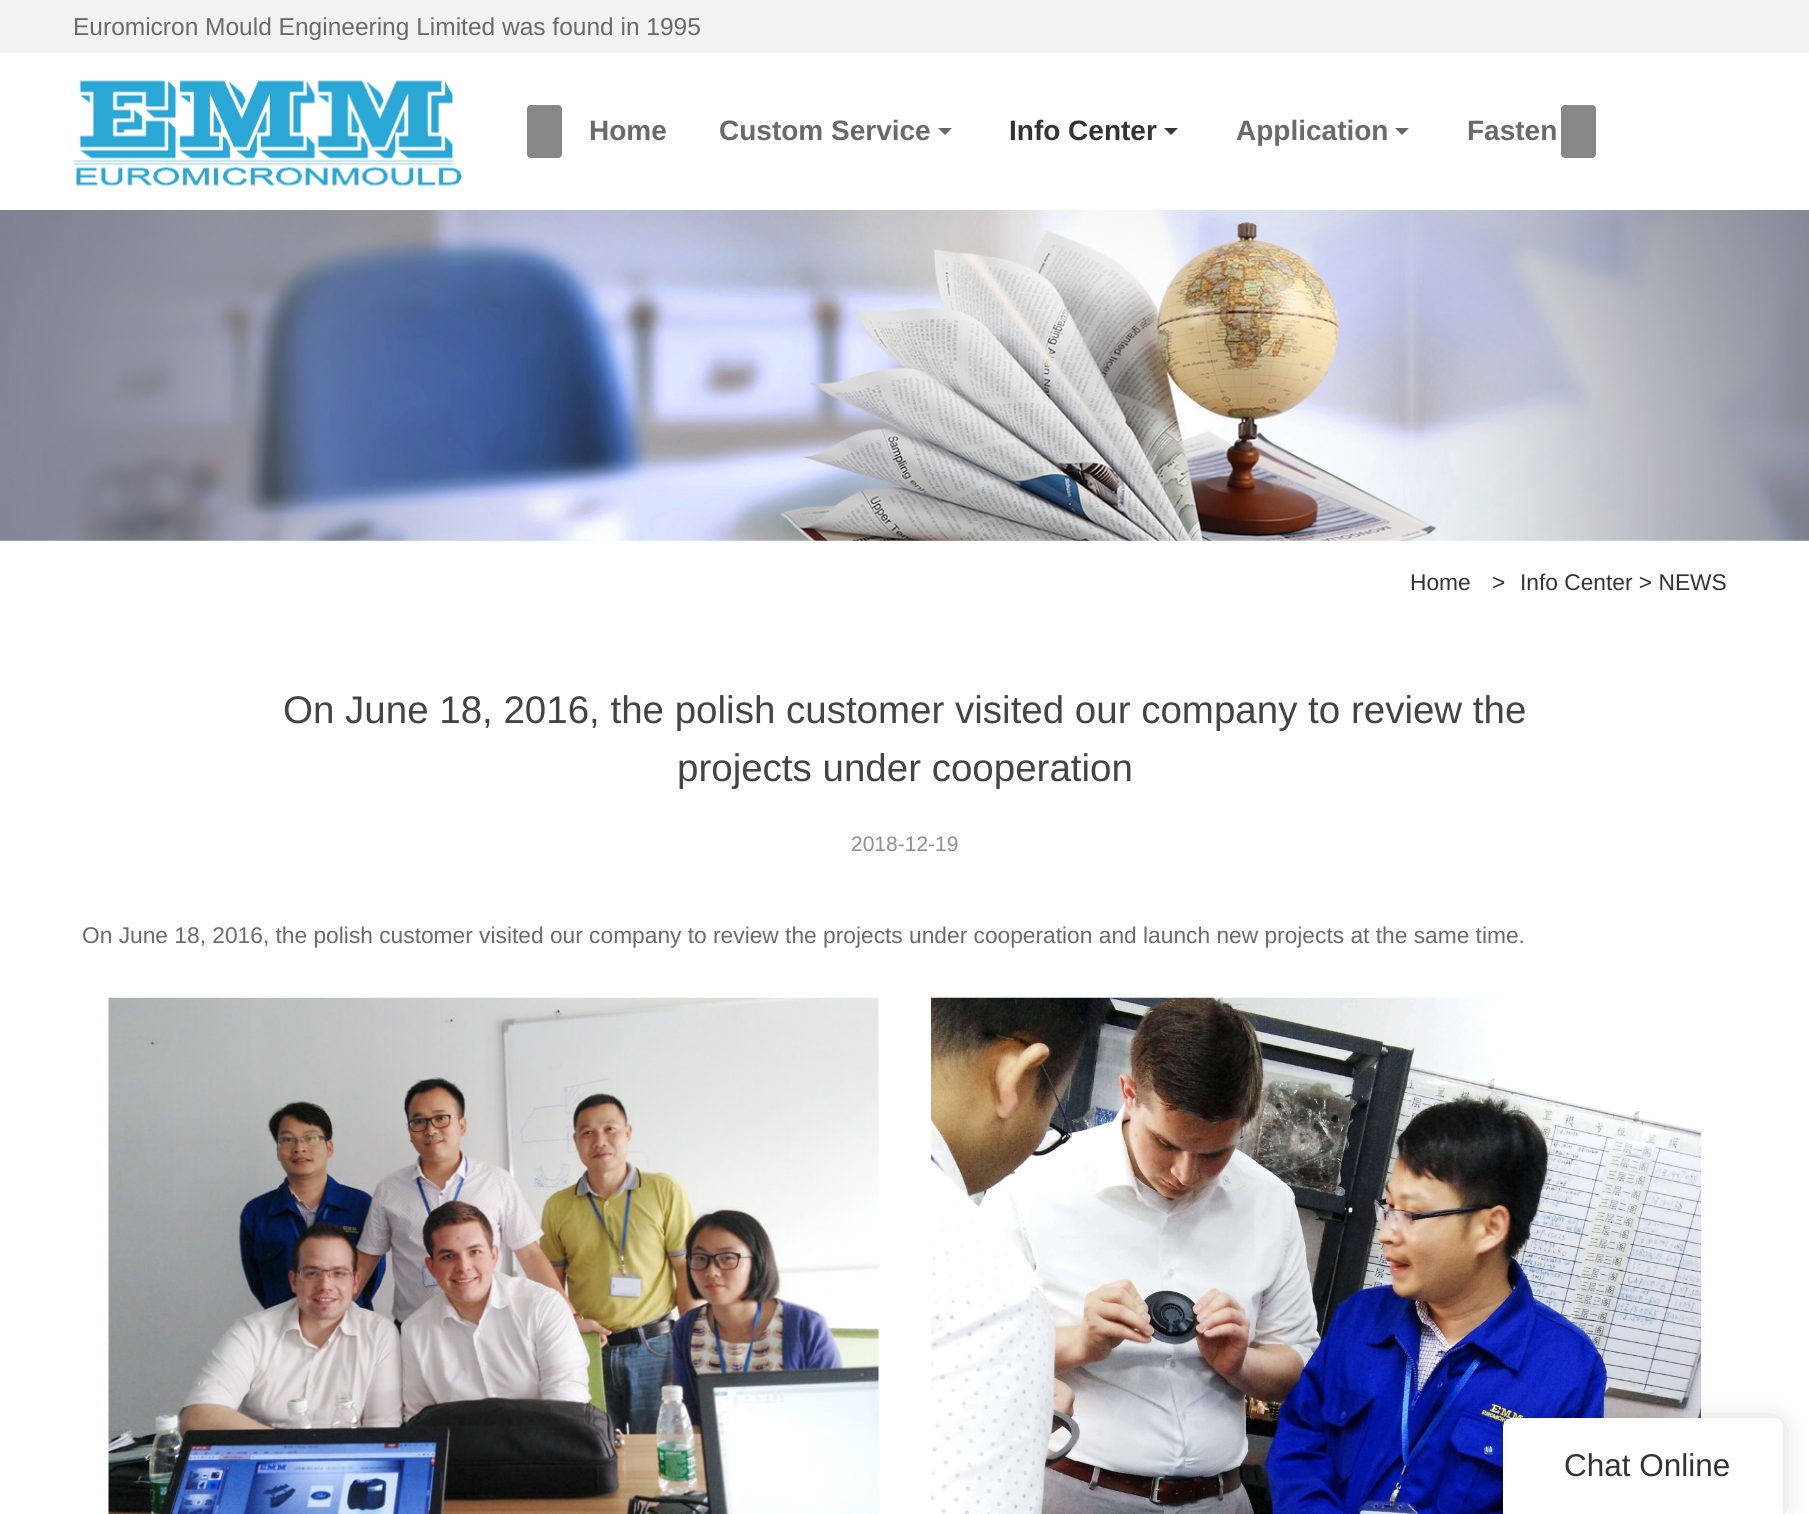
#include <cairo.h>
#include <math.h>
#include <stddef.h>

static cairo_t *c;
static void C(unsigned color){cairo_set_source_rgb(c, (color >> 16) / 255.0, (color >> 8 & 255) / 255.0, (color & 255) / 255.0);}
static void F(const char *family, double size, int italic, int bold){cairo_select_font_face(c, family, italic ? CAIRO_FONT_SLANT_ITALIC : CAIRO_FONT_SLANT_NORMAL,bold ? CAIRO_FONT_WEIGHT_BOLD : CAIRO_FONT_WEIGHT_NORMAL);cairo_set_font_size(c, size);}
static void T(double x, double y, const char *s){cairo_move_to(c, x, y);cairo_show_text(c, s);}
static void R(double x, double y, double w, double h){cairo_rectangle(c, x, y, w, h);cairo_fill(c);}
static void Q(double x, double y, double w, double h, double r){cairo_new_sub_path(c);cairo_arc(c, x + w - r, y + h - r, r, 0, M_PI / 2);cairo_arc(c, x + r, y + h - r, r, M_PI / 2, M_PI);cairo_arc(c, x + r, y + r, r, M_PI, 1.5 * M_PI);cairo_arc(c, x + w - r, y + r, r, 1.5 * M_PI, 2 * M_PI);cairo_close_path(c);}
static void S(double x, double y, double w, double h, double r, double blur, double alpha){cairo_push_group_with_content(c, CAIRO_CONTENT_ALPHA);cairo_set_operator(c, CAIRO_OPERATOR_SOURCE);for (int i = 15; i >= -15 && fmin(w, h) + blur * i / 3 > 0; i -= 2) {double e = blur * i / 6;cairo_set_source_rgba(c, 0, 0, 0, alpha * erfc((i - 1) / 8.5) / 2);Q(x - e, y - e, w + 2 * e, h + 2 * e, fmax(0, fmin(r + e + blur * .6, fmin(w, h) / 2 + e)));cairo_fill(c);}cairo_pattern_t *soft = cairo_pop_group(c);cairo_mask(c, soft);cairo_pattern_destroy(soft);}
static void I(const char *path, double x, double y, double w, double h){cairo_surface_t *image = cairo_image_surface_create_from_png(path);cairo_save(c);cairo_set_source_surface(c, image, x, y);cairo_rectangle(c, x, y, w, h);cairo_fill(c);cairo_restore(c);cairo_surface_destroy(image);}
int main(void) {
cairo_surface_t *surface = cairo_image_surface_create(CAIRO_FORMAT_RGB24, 1809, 1514);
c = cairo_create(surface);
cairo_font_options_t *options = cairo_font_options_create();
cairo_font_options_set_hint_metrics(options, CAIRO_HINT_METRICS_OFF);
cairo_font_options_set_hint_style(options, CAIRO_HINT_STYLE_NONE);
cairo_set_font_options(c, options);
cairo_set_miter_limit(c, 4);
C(0xffffff);
cairo_paint(c);
C(0xf2f2f2);
R(0,0,1809,53);
F("Liberation Sans",24.5,0,0);
C(0x6a6a6a);
T(73,35,"Euromicron Mould Engineering Limited was found in 1995");
I("1.png",73,80,389,106);
C(0x888787);
Q(527,105,35,53,4);
cairo_fill(c);
Q(1561,105,35,53,4);
cairo_fill(c);
F("Liberation Sans",28,0,1);
C(0x6a6a6a);
T(589,140,"Home");
T(719,140,"Custom Service");
C(0x666666);
cairo_new_path(c);
cairo_move_to(c,938,128);
cairo_line_to(c,952,128);
cairo_line_to(c,945,135);
cairo_close_path(c);
cairo_fill(c);
C(0x333333);
T(1009,140,"Info Center");
C(0x383737);
cairo_new_path(c);
cairo_move_to(c,1164,128);
cairo_line_to(c,1178,128);
cairo_line_to(c,1171,135);
cairo_close_path(c);
cairo_fill(c);
C(0x6a6a6a);
T(1236,140,"Application");
C(0x666666);
cairo_new_path(c);
cairo_move_to(c,1395,128);
cairo_line_to(c,1409,128);
cairo_line_to(c,1402,135);
cairo_close_path(c);
cairo_fill(c);
C(0x6a6a6a);
T(1467,140,"Fasten");
I("2.png",0,210,1809,331);
F("Liberation Sans",22.75,0,0);
C(0x333333);
T(1410,590,"Home");
T(1492,590,">");
T(1520,590,"Info Center > NEWS");
F("Liberation Sans",38.5,0,0);
C(0x444444);
T(283,723,"On June 18, 2016, the polish customer visited our company to review the");
T(677,781,"projects under cooperation");
F("Liberation Sans",21,0,0);
C(0x8f8f8f);
T(851,851,"2018-12-19");
F("Liberation Sans",22.75,0,0);
C(0x6a6a6a);
T(82,943,"On June 18, 2016, the polish customer visited our company to review the projects under cooperation and launch new projects at the same time.");
I("3.png",108,997,771,517);
I("4.png",931,997,770,517);
C(0x000000);
S(1503,1419,280,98,9,13,.15);
C(0xffffff);
cairo_new_path(c);
cairo_move_to(c,1512,1418);
cairo_line_to(c,1774,1418);
cairo_curve_to(c,1779,1418,1783,1422,1783,1427);
cairo_line_to(c,1783,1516);
cairo_line_to(c,1503,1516);
cairo_line_to(c,1503,1427);
cairo_curve_to(c,1503,1422,1507,1418,1512,1418);
cairo_close_path(c);
cairo_fill(c);
F("Liberation Sans",31.5,0,0);
C(0x333333);
T(1564,1476,"Chat Online");
cairo_surface_write_to_png(surface, "o.png");
cairo_font_options_destroy(options);
cairo_destroy(c);
cairo_surface_destroy(surface);
return 0;
}
